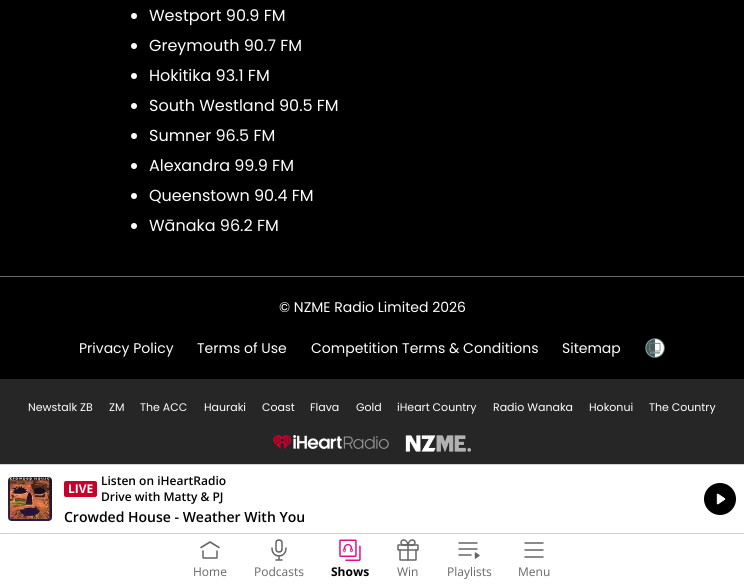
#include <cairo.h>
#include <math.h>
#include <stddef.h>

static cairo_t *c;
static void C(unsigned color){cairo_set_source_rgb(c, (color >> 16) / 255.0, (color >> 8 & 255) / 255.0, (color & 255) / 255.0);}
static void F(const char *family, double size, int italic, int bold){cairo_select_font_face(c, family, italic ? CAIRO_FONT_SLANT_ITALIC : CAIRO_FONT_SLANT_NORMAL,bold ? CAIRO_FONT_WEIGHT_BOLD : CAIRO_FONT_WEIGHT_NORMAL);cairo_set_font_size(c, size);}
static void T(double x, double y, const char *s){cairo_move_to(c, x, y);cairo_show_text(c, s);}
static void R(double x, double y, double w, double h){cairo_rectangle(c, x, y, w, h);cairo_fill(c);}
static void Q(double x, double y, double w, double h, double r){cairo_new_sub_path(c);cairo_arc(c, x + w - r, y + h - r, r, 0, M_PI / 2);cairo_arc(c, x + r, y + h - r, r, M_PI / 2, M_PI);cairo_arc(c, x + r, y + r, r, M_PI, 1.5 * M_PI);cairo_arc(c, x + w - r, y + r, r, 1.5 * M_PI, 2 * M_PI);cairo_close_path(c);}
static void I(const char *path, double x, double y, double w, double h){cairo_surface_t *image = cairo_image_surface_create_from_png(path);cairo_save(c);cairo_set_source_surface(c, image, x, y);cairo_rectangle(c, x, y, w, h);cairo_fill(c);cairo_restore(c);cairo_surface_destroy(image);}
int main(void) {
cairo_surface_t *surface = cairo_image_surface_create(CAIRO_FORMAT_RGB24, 744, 584);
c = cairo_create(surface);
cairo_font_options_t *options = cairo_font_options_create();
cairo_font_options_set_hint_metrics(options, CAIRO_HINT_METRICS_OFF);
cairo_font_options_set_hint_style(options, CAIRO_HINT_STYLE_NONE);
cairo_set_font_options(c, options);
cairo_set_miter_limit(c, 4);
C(0x000000);
cairo_paint(c);
C(0xffffff);
cairo_arc(c,134,16,3,0,2 * M_PI);
cairo_fill(c);
F("Poppins",16,0,0);
T(149,21,"Westport 90.9 FM");
cairo_new_path(c);
cairo_arc(c,134,46,3,0,2 * M_PI);
cairo_fill(c);
T(149,51,"Greymouth 90.7 FM");
cairo_new_path(c);
cairo_arc(c,134,76,3,0,2 * M_PI);
cairo_fill(c);
T(149,81,"Hokitika 93.1 FM");
cairo_new_path(c);
cairo_arc(c,134,106,3,0,2 * M_PI);
cairo_fill(c);
T(149,111,"South Westland 90.5 FM");
cairo_new_path(c);
cairo_arc(c,134,136,3,0,2 * M_PI);
cairo_fill(c);
T(149,141,"Sumner 96.5 FM");
cairo_new_path(c);
cairo_arc(c,134,166,3,0,2 * M_PI);
cairo_fill(c);
T(149,171,"Alexandra 99.9 FM");
cairo_new_path(c);
cairo_arc(c,134,196,3,0,2 * M_PI);
cairo_fill(c);
T(149,201,"Queenstown 90.4 FM");
cairo_new_path(c);
cairo_arc(c,134,226,3,0,2 * M_PI);
cairo_fill(c);
T(149,231,"Wānaka 96.2 FM");
C(0x6b6b6b);
R(0,276,744,1);
F("Poppins",14,0,0);
C(0xffffff);
T(279,312,"© NZME Radio Limited 2026");
T(79,353,"Privacy Policy");
T(197,353,"Terms of Use");
T(311,353,"Competition Terms & Conditions");
T(562,353,"Sitemap");
I("1.png",645,338,20,20);
C(0x262626);
R(0,379,744,85);
F("Poppins",11,0,0);
C(0xffffff);
T(28,411,"Newstalk ZB");
T(109,411,"ZM");
T(140,411,"The ACC");
T(204,411,"Hauraki");
T(262,411,"Coast");
T(310,411,"Flava");
T(356,411,"Gold");
T(397,411,"iHeart Country");
T(493,411,"Radio Wanaka");
T(589,411,"Hokonui");
T(649,411,"The Country");
I("2.png",273,435,116,14);
I("3.png",405,435,66,17);
R(0,465,744,119);
C(0xd1d5db);
R(0,464,744,1);
I("4.png",8,477,44,44);
C(0xc7002b);
Q(64,481,33,16,2);
cairo_fill(c);
F("Open Sans",12,0,1);
C(0xffffff);
T(68,493,"LIVE");
F("Open Sans SemiBold",12,0,0);
C(0x000000);
T(101,485,"Listen on iHeartRadio");
T(101,501,"Drive with Matty & PJ");
F("Open Sans SemiBold",14,0,0);
T(64,522,"Crowded House - Weather With You");
cairo_new_path(c);
cairo_arc(c,720,499,16,0,2 * M_PI);
cairo_fill(c);
I("5.png",716,493,10,12);
C(0xd1d5db);
R(0,533,744,1);
I("6.png",200,541,20,18);
F("Open Sans",12,0,0);
C(0x666666);
T(193,576,"Home");
I("7.png",271,539,16,22);
T(254,576,"Podcasts");
I("8.png",339,539,22,22);
F("Open Sans",12,0,1);
C(0x000000);
T(331,576,"Shows");
I("9.png",397,539,22,22);
F("Open Sans",12,0,0);
C(0x666666);
T(397,576,"Win");
I("10.png",458,542,22,17);
T(447,576,"Playlists");
I("11.png",524,542,20,16);
T(518,576,"Menu");
cairo_surface_write_to_png(surface, "o.png");
cairo_font_options_destroy(options);
cairo_destroy(c);
cairo_surface_destroy(surface);
return 0;
}
